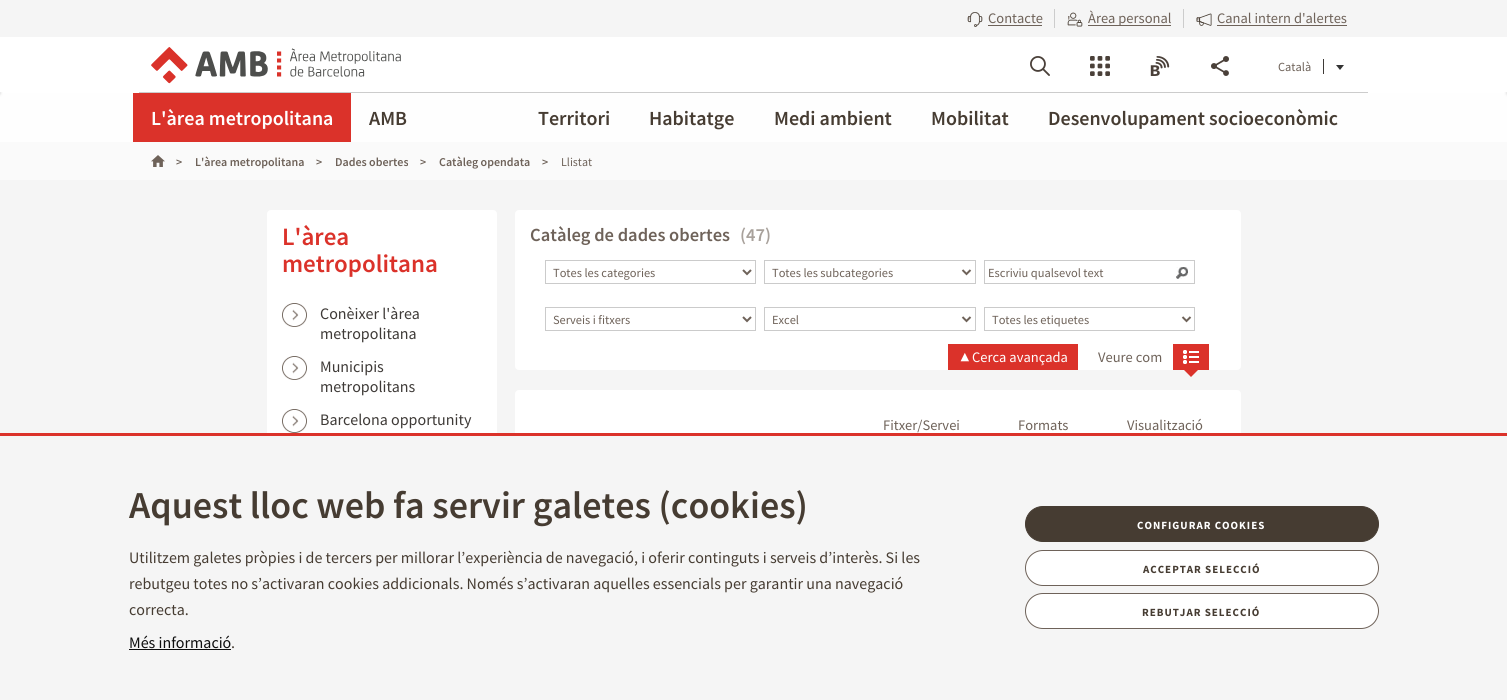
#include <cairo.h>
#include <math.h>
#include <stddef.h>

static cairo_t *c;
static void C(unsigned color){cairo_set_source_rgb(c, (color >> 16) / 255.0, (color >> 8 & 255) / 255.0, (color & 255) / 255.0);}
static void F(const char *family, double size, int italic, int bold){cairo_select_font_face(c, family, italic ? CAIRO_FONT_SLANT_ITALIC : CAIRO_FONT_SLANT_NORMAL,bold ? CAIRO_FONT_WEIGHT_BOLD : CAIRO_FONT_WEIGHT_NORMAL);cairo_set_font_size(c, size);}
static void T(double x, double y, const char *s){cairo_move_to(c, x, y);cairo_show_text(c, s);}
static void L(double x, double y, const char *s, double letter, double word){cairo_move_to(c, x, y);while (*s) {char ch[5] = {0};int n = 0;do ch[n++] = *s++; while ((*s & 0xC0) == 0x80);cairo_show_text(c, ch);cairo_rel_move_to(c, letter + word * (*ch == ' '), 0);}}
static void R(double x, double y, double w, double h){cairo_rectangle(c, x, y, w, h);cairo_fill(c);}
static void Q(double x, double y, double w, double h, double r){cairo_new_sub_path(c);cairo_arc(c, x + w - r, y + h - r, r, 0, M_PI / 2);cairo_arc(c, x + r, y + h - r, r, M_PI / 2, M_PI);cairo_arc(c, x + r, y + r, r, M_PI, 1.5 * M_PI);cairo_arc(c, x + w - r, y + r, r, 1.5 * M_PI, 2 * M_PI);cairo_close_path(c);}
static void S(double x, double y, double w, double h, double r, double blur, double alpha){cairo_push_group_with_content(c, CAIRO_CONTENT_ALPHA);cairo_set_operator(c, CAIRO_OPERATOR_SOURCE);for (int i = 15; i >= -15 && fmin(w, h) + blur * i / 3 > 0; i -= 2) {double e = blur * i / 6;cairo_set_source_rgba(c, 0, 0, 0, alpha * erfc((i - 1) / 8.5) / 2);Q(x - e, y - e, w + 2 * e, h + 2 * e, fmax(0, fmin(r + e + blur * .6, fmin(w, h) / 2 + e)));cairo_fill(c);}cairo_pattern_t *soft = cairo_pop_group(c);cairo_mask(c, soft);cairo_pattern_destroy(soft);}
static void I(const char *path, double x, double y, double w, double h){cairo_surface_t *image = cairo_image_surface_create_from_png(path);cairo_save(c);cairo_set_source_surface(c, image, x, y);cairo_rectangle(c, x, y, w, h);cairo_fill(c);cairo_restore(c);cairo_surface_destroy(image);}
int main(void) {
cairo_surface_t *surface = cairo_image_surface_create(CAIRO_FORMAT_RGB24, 1507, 700);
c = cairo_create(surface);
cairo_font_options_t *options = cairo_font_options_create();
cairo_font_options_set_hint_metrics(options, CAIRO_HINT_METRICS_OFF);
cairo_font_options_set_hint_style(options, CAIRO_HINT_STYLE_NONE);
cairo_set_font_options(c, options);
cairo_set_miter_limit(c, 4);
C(0xf5f5f5);
cairo_paint(c);
C(0xffffff);
R(0,37,1507,56);
C(0xfefefe);
R(0,93,1507,49);
C(0xcccccc);
S(-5,1,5,93,0,1.5,1);
C(0xffffff);
cairo_new_path(c);
cairo_move_to(c,-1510,-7);
cairo_line_to(c,-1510,92);
cairo_line_to(c,-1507,92);
cairo_line_to(c,-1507,0);
cairo_line_to(c,0,0);
cairo_line_to(c,0,92);
cairo_line_to(c,3,92);
cairo_line_to(c,3,-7);
cairo_close_path(c);
cairo_fill(c);
C(0xcccccc);
S(1507,1,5,93,0,1.5,1);
C(0xffffff);
cairo_new_path(c);
cairo_move_to(c,1504,-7);
cairo_line_to(c,1504,92);
cairo_line_to(c,1507,92);
cairo_line_to(c,1507,0);
cairo_line_to(c,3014,0);
cairo_line_to(c,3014,92);
cairo_line_to(c,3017,92);
cairo_line_to(c,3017,-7);
cairo_close_path(c);
cairo_fill(c);
C(0xf5f5f5);
R(0,0,1507,37);
C(0xcccccc);
R(1054,9,1,19);
I("1.png",967,12,16,15);
F("Source Sans Pro",14.5,0,0);
C(0x6e6259);
T(967,26,"'");
T(988,23,"Contacte");
R(988,25,54,1);
C(0xcccccc);
R(1183,9,1,19);
I("2.png",1067,12,16,15);
C(0x6e6259);
T(1067,26,"'");
R(1088,25,83,1);
T(1088,23,"Àrea personal");
I("3.png",1196,13,16,13);
T(1196,27,"'");
T(1217,23,"Canal intern d'alertes");
R(1217,25,130,1);
C(0xcccccc);
R(139,92,1229,1);
I("4.png",151,47,250,37);
I("5.png",1030,56,20,20);
I("6.png",1090,56,20,20);
I("7.png",1150,56,20,20);
I("8.png",1211,56,18,20);
F("Source Sans Pro",12.4,0,0);
C(0x6e6259);
T(1278,71,"Català");
C(0x3e3a37);
R(1323,59,1,15);
C(0x333333);
cairo_new_path(c);
cairo_move_to(c,1336,65);
cairo_line_to(c,1344,65);
cairo_line_to(c,1340,70);
cairo_close_path(c);
cairo_fill(c);
C(0xdb322a);
R(133,93,218,49);
F("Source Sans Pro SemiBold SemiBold",20,0,0);
C(0xffffff);
T(151,125,"L'àrea metropolitana");
C(0x463c32);
T(369,125,"AMB");
T(538,125,"Territori");
T(649,125,"Habitatge");
T(774,125,"Medi ambient");
T(931,125,"Mobilitat");
T(1048,125,"Desenvolupament socioeconòmic");
C(0xfafafa);
R(0,142,1507,38);
I("9.png",151,155,14,12);
F("Source Sans Pro SemiBold SemiBold",12,0,0);
C(0x6e6259);
T(176,166,">");
T(195,166,"L'àrea metropolitana");
T(316,166,">");
T(335,166,"Dades obertes");
T(420,166,">");
T(439,166,"Catàleg opendata");
T(542,166,">");
F("Source Sans Pro",12,0,0);
T(561,166,"Llistat");
C(0xffffff);
Q(267,210,230,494,4);
cairo_fill(c);
F("Source Sans Pro SemiBold SemiBold",25,0,0);
C(0xdb322a);
T(282,245,"L'àrea");
T(282,272,"metropolitana");
I("10.png",282,303,25,24);
F("Source Sans Pro",16,0,0);
C(0x3e3a37);
T(320,319,"Conèixer l'àrea");
T(320,339,"metropolitana");
I("10.png",282,356,25,24);
T(320,372,"Municipis");
T(320,392,"metropolitans");
I("10.png",282,409,25,24);
T(320,425,"Barcelona opportunity");
C(0xffffff);
Q(515,210,726,160,4);
cairo_fill(c);
F("Source Sans Pro SemiBold SemiBold",18.5,0,0);
C(0x6e6259);
T(530,241,"Catàleg de dades obertes");
C(0xa8a19b);
T(740,241,"(47)");
cairo_rectangle(c,545.5,260.5,210,23);
C(0xcbcbcb);
cairo_set_line_width(c,1);
cairo_stroke(c);
cairo_new_path(c);
cairo_move_to(c,743,270);
cairo_line_to(c,747,274);
cairo_line_to(c,751,270);
C(0x6e6259);
cairo_set_line_width(c,2);
cairo_stroke(c);
F("Source Sans Pro",12.4,0,0);
T(553,277,"Totes les categories");
cairo_rectangle(c,764.5,260.5,211,23);
C(0xcbcbcb);
cairo_set_line_width(c,1);
cairo_stroke(c);
cairo_new_path(c);
cairo_move_to(c,962.5,270);
cairo_line_to(c,966.5,274);
cairo_line_to(c,970.5,270);
C(0x6e6259);
cairo_set_line_width(c,2);
cairo_stroke(c);
T(772,277,"Totes les subcategories");
cairo_rectangle(c,984.5,260.5,210,23);
C(0xcbcbcb);
cairo_set_line_width(c,1);
cairo_stroke(c);
C(0x6e6259);
T(988,277,"Escriviu qualsevol text");
I("11.png",1176,267,12,12);
cairo_rectangle(c,545.5,307.5,210,23);
C(0xcbcbcb);
cairo_stroke(c);
cairo_new_path(c);
cairo_move_to(c,743,317);
cairo_line_to(c,747,321);
cairo_line_to(c,751,317);
C(0x6e6259);
cairo_set_line_width(c,2);
cairo_stroke(c);
T(553,324,"Serveis i fitxers");
cairo_rectangle(c,764.5,307.5,211,23);
C(0xcbcbcb);
cairo_set_line_width(c,1);
cairo_stroke(c);
cairo_new_path(c);
cairo_move_to(c,962.5,317);
cairo_line_to(c,966.5,321);
cairo_line_to(c,970.5,317);
C(0x6e6259);
cairo_set_line_width(c,2);
cairo_stroke(c);
T(772,324,"Excel");
cairo_rectangle(c,984.5,307.5,210,23);
C(0xcbcbcb);
cairo_set_line_width(c,1);
cairo_stroke(c);
cairo_new_path(c);
cairo_move_to(c,1182.5,317);
cairo_line_to(c,1186.5,321);
cairo_line_to(c,1190.5,317);
C(0x6e6259);
cairo_set_line_width(c,2);
cairo_stroke(c);
T(992,324,"Totes les etiquetes");
C(0xdb322a);
R(948,344,130,26);
F("Liberation Sans",14.5,0,0);
C(0xffffff);
cairo_save(c);
cairo_translate(c,972,353);
cairo_rotate(c,180 * M_PI / 180);
T(0,0,"▼");
cairo_restore(c);
F("Source Sans Pro",14.5,0,0);
T(972,362,"Cerca avançada");
C(0x6e6259);
T(1098,362,"Veure com");
C(0xdb322a);
R(1173,344,36,26);
I("12.png",1183,350,16,14);
cairo_new_path(c);
cairo_move_to(c,1184,370);
cairo_line_to(c,1198,370);
cairo_line_to(c,1191,377);
cairo_close_path(c);
cairo_fill(c);
C(0xffffff);
Q(515,390,726,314,4);
cairo_fill(c);
C(0x6e6259);
T(883,430,"Fitxer/Servei");
T(1018,430,"Formats");
T(1127,430,"Visualització");
C(0xf5f5f5);
R(267,436,974,264);
C(0xdb322a);
R(0,433,1507,3);
F("Source Sans Pro SemiBold SemiBold",38,0,0);
C(0x463c32);
T(129,518,"Aquest lloc web fa servir galetes (cookies)");
F("Source Sans Pro",16,0,0);
T(129,563,"Utilitzem galetes pròpies i de tercers per millorar l’experiència de navegació, i oferir continguts i serveis d’interès. Si les");
T(129,589,"rebutgeu totes no s’activaran cookies addicionals. Només s’activaran aquelles essencials per garantir una navegació");
T(129,615,"correcta.");
C(0x0e0e0e);
T(129,648,"Més informació");
R(129,649,102,1);
C(0x463c32);
T(231,648,".");
Q(1025.5,506.5,353,35,17.5);
cairo_fill_preserve(c);
cairo_set_line_width(c,1);
cairo_stroke(c);
F("Source Sans Pro",11,0,1);
C(0xffffff);
L(1137,529,"CONFIGURAR COOKIES",1,0);
Q(1025.5,550.5,353,35,17.5);
cairo_fill_preserve(c);
C(0x6e6259);
cairo_stroke(c);
C(0x463c32);
L(1143,573,"ACCEPTAR SELECCIÓ",1,0);
C(0xffffff);
Q(1025.5,593.5,353,35,17.5);
cairo_fill_preserve(c);
C(0x6e6259);
cairo_stroke(c);
C(0x463c32);
L(1142,616,"REBUTJAR SELECCIÓ",1,0);
cairo_surface_write_to_png(surface, "o.png");
cairo_font_options_destroy(options);
cairo_destroy(c);
cairo_surface_destroy(surface);
return 0;
}
